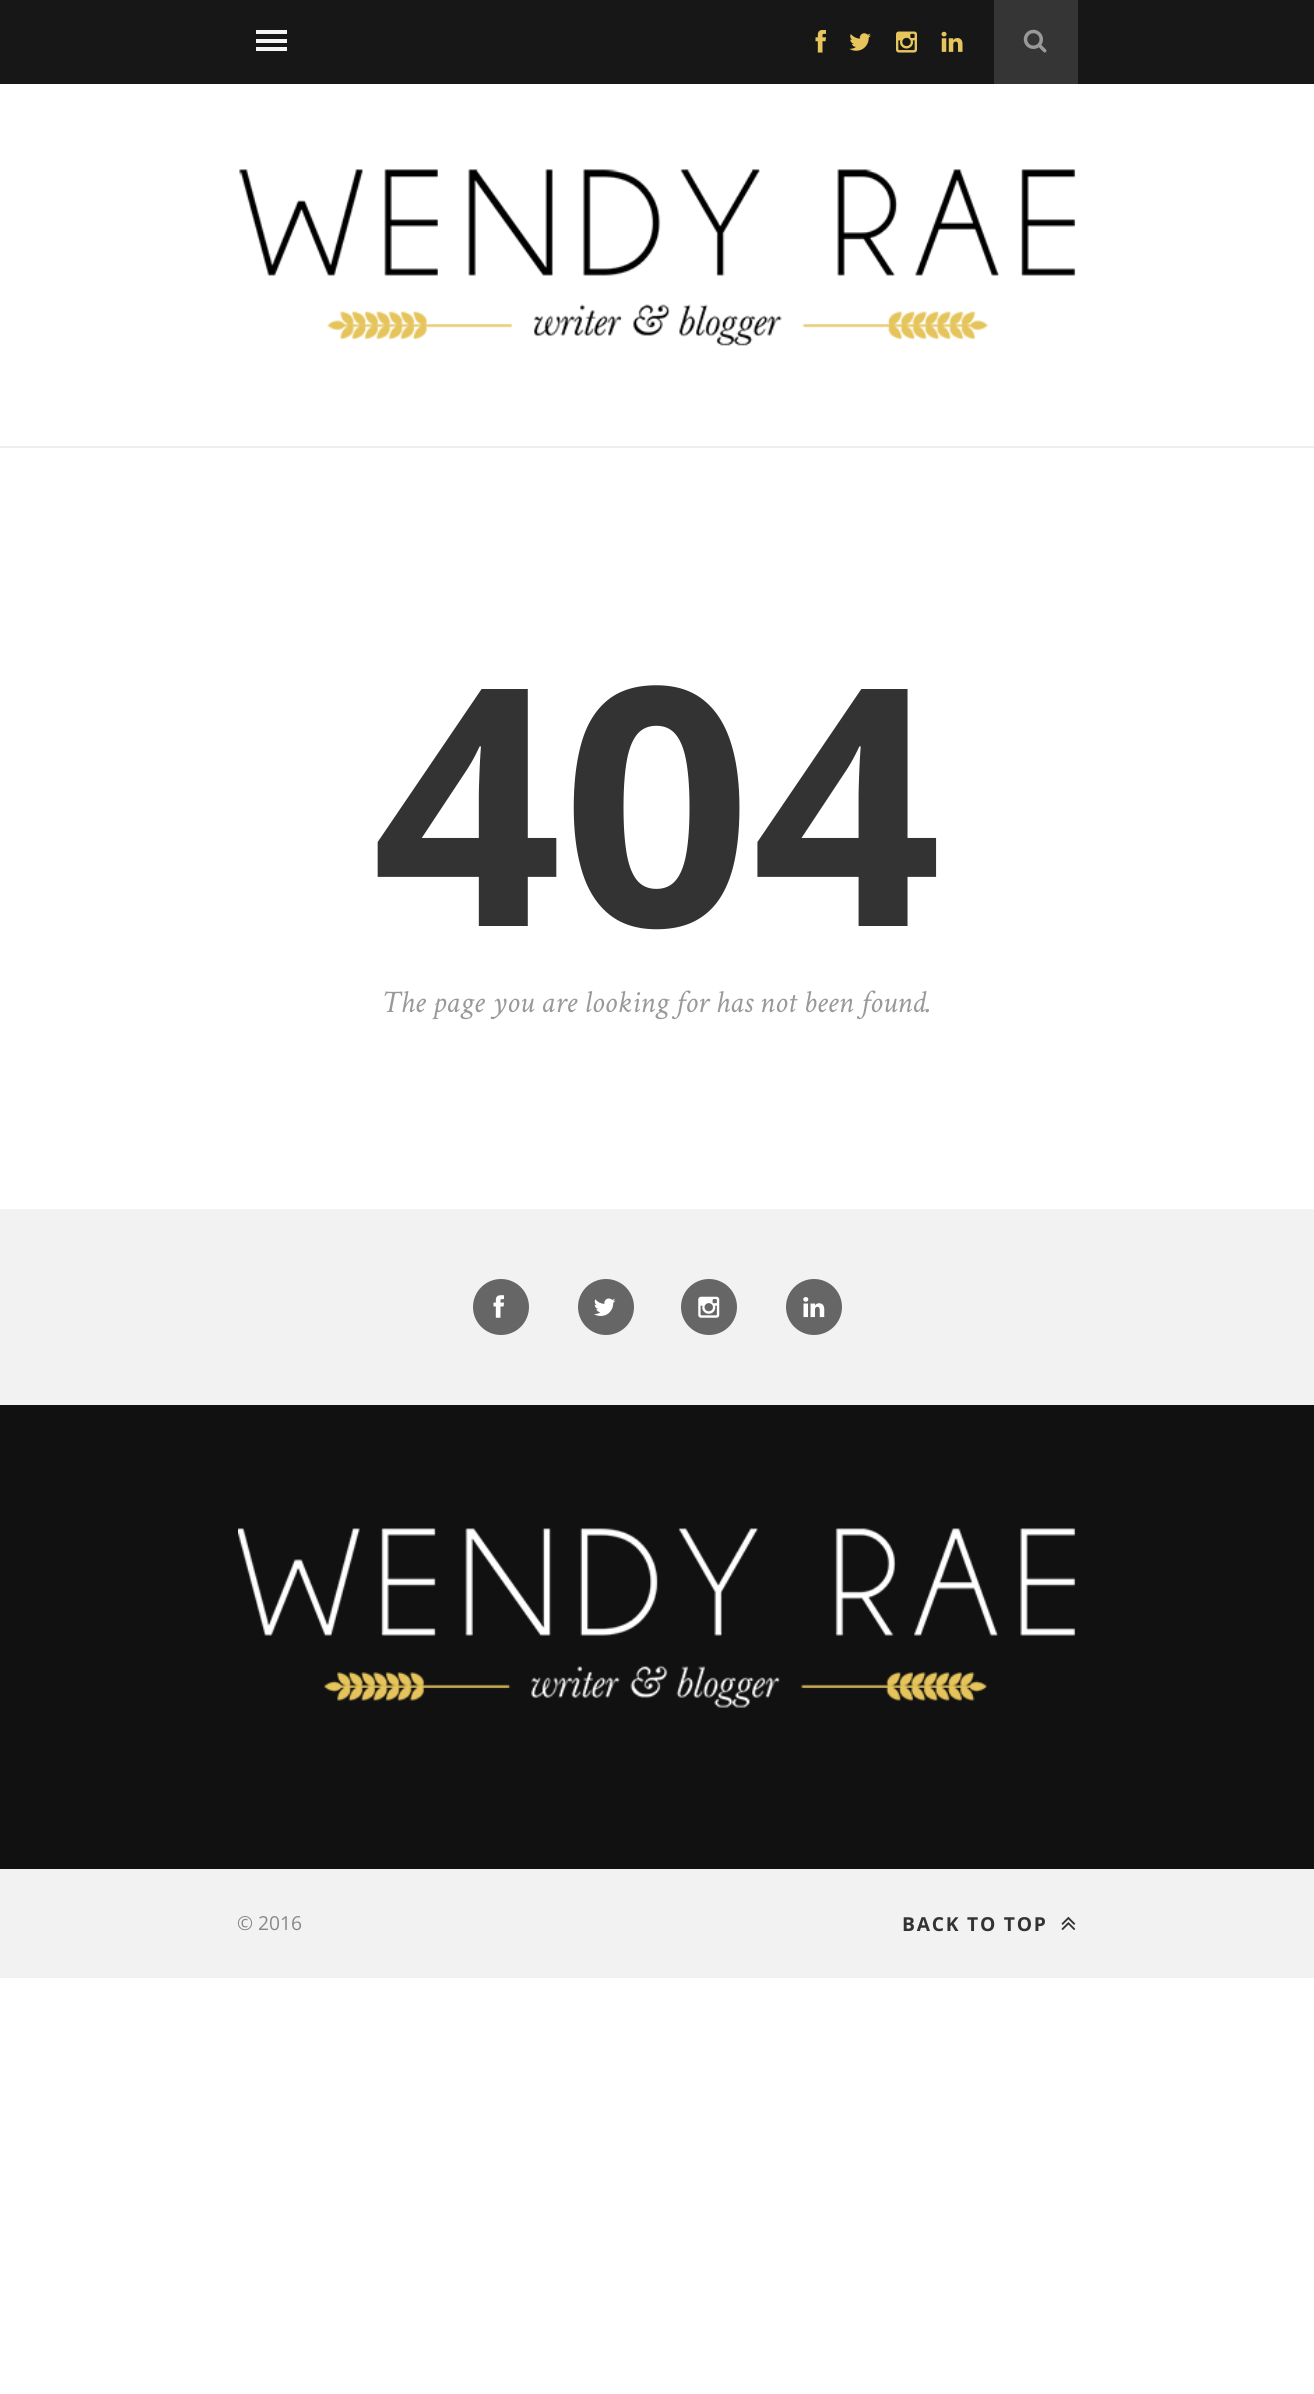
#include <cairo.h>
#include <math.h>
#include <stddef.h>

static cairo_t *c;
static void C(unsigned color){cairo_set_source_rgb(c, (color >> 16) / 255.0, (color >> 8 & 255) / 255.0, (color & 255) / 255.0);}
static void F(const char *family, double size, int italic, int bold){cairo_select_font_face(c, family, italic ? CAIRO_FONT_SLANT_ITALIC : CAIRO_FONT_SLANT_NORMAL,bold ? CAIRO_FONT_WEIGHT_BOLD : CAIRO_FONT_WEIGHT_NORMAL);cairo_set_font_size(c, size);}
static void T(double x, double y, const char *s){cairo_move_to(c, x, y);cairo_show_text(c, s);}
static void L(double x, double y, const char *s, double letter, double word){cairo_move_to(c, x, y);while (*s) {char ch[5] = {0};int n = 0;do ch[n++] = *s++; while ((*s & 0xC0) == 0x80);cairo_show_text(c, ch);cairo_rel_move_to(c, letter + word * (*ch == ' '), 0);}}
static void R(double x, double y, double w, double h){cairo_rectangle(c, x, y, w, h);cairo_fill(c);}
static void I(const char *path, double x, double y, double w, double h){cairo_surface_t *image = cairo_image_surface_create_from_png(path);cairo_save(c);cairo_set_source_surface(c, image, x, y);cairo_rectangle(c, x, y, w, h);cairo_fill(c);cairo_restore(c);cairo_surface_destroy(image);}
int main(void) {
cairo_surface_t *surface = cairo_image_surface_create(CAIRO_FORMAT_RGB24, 1314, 2394);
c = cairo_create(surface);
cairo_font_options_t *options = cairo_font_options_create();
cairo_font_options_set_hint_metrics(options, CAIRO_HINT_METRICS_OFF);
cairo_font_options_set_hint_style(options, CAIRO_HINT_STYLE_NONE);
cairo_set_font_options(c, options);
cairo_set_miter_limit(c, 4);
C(0xffffff);
cairo_paint(c);
C(0x171717);
R(0,0,1314,84);
C(0xf5f5f5);
R(256,30,31,4);
R(256,39,31,4);
R(256,47,31,4);
I("1.png",815,30,11,23);
I("2.png",849,33,22,18);
I("3.png",896,31,21,22);
I("4.png",941,31,22,21);
C(0x353535);
R(994,0,84,84);
I("5.png",1023,29,24,24);
C(0xeeeeee);
R(0,446,1314,2);
I("6.png",239,169,837,177);
F("Open Sans",332,0,1);
C(0x333333);
T(372,926,"404");
F("Crimson Text",31.5,1,0);
C(0x999999);
T(382,1012,"The page you are looking for has not been found.");
C(0xf2f2f2);
R(0,1209,1314,196);
C(0x666666);
cairo_new_path(c);
cairo_arc(c,501,1307,28,0,2 * M_PI);
cairo_fill(c);
I("7.png",493,1295,11,23);
cairo_arc(c,606,1307,28,0,2 * M_PI);
cairo_fill(c);
I("8.png",594,1298,22,18);
cairo_arc(c,709,1307,28,0,2 * M_PI);
cairo_fill(c);
I("9.png",698,1296,22,22);
cairo_arc(c,814,1307,28,0,2 * M_PI);
cairo_fill(c);
I("10.png",803,1297,22,21);
C(0x111111);
R(0,1405,1314,464);
I("11.png",238,1528,838,180);
C(0xf2f2f2);
R(0,1869,1314,109);
F("Open Sans",19.25,0,0);
C(0x888888);
T(237,1930,"© 2016");
F("Open Sans",19.25,0,1);
C(0x333333);
L(902,1931,"BACK TO TOP",1.75,0);
I("12.png",1061,1916,15,14);
cairo_surface_write_to_png(surface, "o.png");
cairo_font_options_destroy(options);
cairo_destroy(c);
cairo_surface_destroy(surface);
return 0;
}
